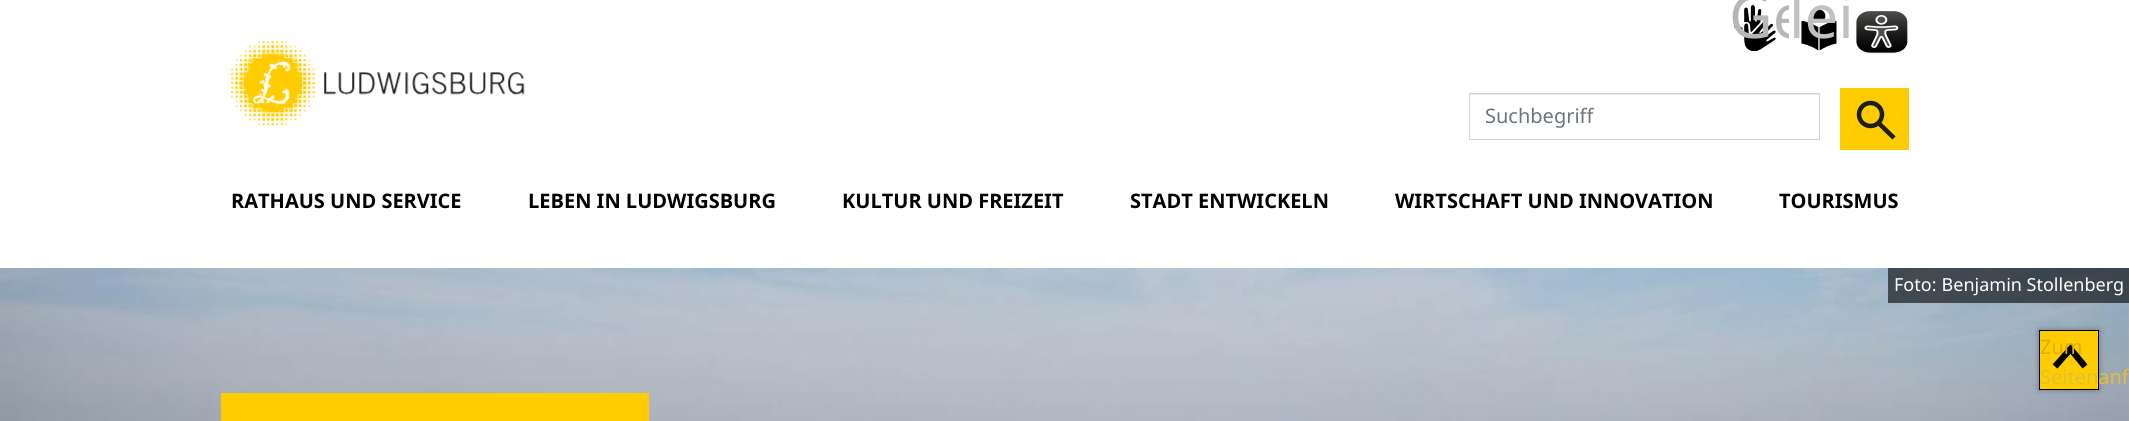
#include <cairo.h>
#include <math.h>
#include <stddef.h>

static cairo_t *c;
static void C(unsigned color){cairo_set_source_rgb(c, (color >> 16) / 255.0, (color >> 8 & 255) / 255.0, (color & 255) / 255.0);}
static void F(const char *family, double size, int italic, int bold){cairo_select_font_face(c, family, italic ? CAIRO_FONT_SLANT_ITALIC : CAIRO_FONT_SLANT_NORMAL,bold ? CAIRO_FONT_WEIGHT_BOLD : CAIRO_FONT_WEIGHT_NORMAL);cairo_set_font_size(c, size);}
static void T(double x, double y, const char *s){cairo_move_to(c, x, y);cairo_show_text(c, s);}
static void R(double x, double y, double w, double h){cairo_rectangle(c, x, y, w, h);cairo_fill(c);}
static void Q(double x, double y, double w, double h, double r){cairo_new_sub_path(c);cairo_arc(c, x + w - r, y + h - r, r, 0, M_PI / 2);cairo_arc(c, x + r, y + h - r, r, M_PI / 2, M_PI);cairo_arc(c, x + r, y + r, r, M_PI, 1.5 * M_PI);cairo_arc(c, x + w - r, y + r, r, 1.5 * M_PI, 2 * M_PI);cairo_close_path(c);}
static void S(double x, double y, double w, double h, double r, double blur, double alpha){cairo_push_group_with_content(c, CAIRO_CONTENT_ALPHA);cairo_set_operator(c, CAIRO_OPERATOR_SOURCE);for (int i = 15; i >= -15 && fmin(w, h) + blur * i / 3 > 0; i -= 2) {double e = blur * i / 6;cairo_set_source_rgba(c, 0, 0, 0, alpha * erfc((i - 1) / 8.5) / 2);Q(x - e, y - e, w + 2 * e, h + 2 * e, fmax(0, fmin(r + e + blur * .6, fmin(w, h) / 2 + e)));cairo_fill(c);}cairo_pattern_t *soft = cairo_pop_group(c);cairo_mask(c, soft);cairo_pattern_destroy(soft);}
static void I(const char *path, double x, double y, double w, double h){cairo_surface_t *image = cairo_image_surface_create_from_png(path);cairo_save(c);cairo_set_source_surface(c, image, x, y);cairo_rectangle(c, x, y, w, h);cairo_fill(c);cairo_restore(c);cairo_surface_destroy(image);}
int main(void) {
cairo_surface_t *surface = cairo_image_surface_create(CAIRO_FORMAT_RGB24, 2129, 421);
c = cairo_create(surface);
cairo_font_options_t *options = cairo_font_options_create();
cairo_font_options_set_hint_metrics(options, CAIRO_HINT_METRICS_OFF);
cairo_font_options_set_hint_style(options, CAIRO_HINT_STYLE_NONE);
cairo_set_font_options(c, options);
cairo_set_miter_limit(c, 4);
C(0xffffff);
cairo_paint(c);
I("1.png",230,41,295,85);
I("2.png",1734,5,42,46);
cairo_save(c);
cairo_rectangle(c,1729,0,60,60);
cairo_clip(c);
F("Noto Sans",60,0,0);
C(0xb7b7b7);
T(1729,38,"Ge");
cairo_restore(c);
I("3.png",1801,9,36,42);
F("Noto Sans",60,0,0);
C(0xc1c1c1);
T(1789,38,"lei");
I("4.png",1855,10,53,44);
C(0xececec);
R(1470,94,349,1);
cairo_rectangle(c,1469.5,93.5,350,46);
C(0xced4da);
cairo_set_line_width(c,1);
cairo_stroke(c);
F("Noto Sans",20,0,0);
C(0x6c757d);
T(1485,123,"Suchbegriff");
C(0xffcc00);
R(1840,88,69,62);
cairo_new_path(c);
cairo_arc(c,1870.5,114.5,11.5,0,2 * M_PI);
C(0x1d1d1b);
cairo_set_line_width(c,4.5);
cairo_stroke(c);
cairo_new_path(c);
cairo_move_to(c,1878.5,123);
cairo_line_to(c,1894,138);
cairo_stroke(c);
F("Noto Sans",20,0,1);
C(0x000000);
T(231,208,"RATHAUS UND SERVICE");
T(528,208,"LEBEN IN LUDWIGSBURG");
T(842,208,"KULTUR UND FREIZEIT");
T(1130,208,"STADT ENTWICKELN");
T(1395,208,"WIRTSCHAFT UND INNOVATION");
T(1779,208,"TOURISMUS");
I("5.png",0,268,2129,153);
cairo_set_source_rgba(c,0,0,0,0.6);
R(1888,268,241,35);
F("Noto Sans",18,0,0);
C(0xffffff);
T(1894,291,"Foto: Benjamin Stollenberg");
C(0xffcc00);
R(221,393,428,28);
C(0x6c757d);
S(2039,330,60,60,0,3,1);
C(0xffcc00);
R(2040,331,58,58);
cairo_new_path(c);
cairo_move_to(c,2055,366.5);
cairo_line_to(c,2070.5,349);
cairo_line_to(c,2085,366.5);
C(0x000000);
cairo_set_line_width(c,6.3);
cairo_stroke(c);
cairo_rectangle(c,2039.5,330.5,59,59);
cairo_set_line_width(c,1);
cairo_stroke(c);
F("Noto Sans",20,0,0);
C(0xdbaf00);
T(2040,354,"Zum");
C(0xdfbf39);
T(2040,384,"Seitenanf");
cairo_surface_write_to_png(surface, "o.png");
cairo_font_options_destroy(options);
cairo_destroy(c);
cairo_surface_destroy(surface);
return 0;
}
